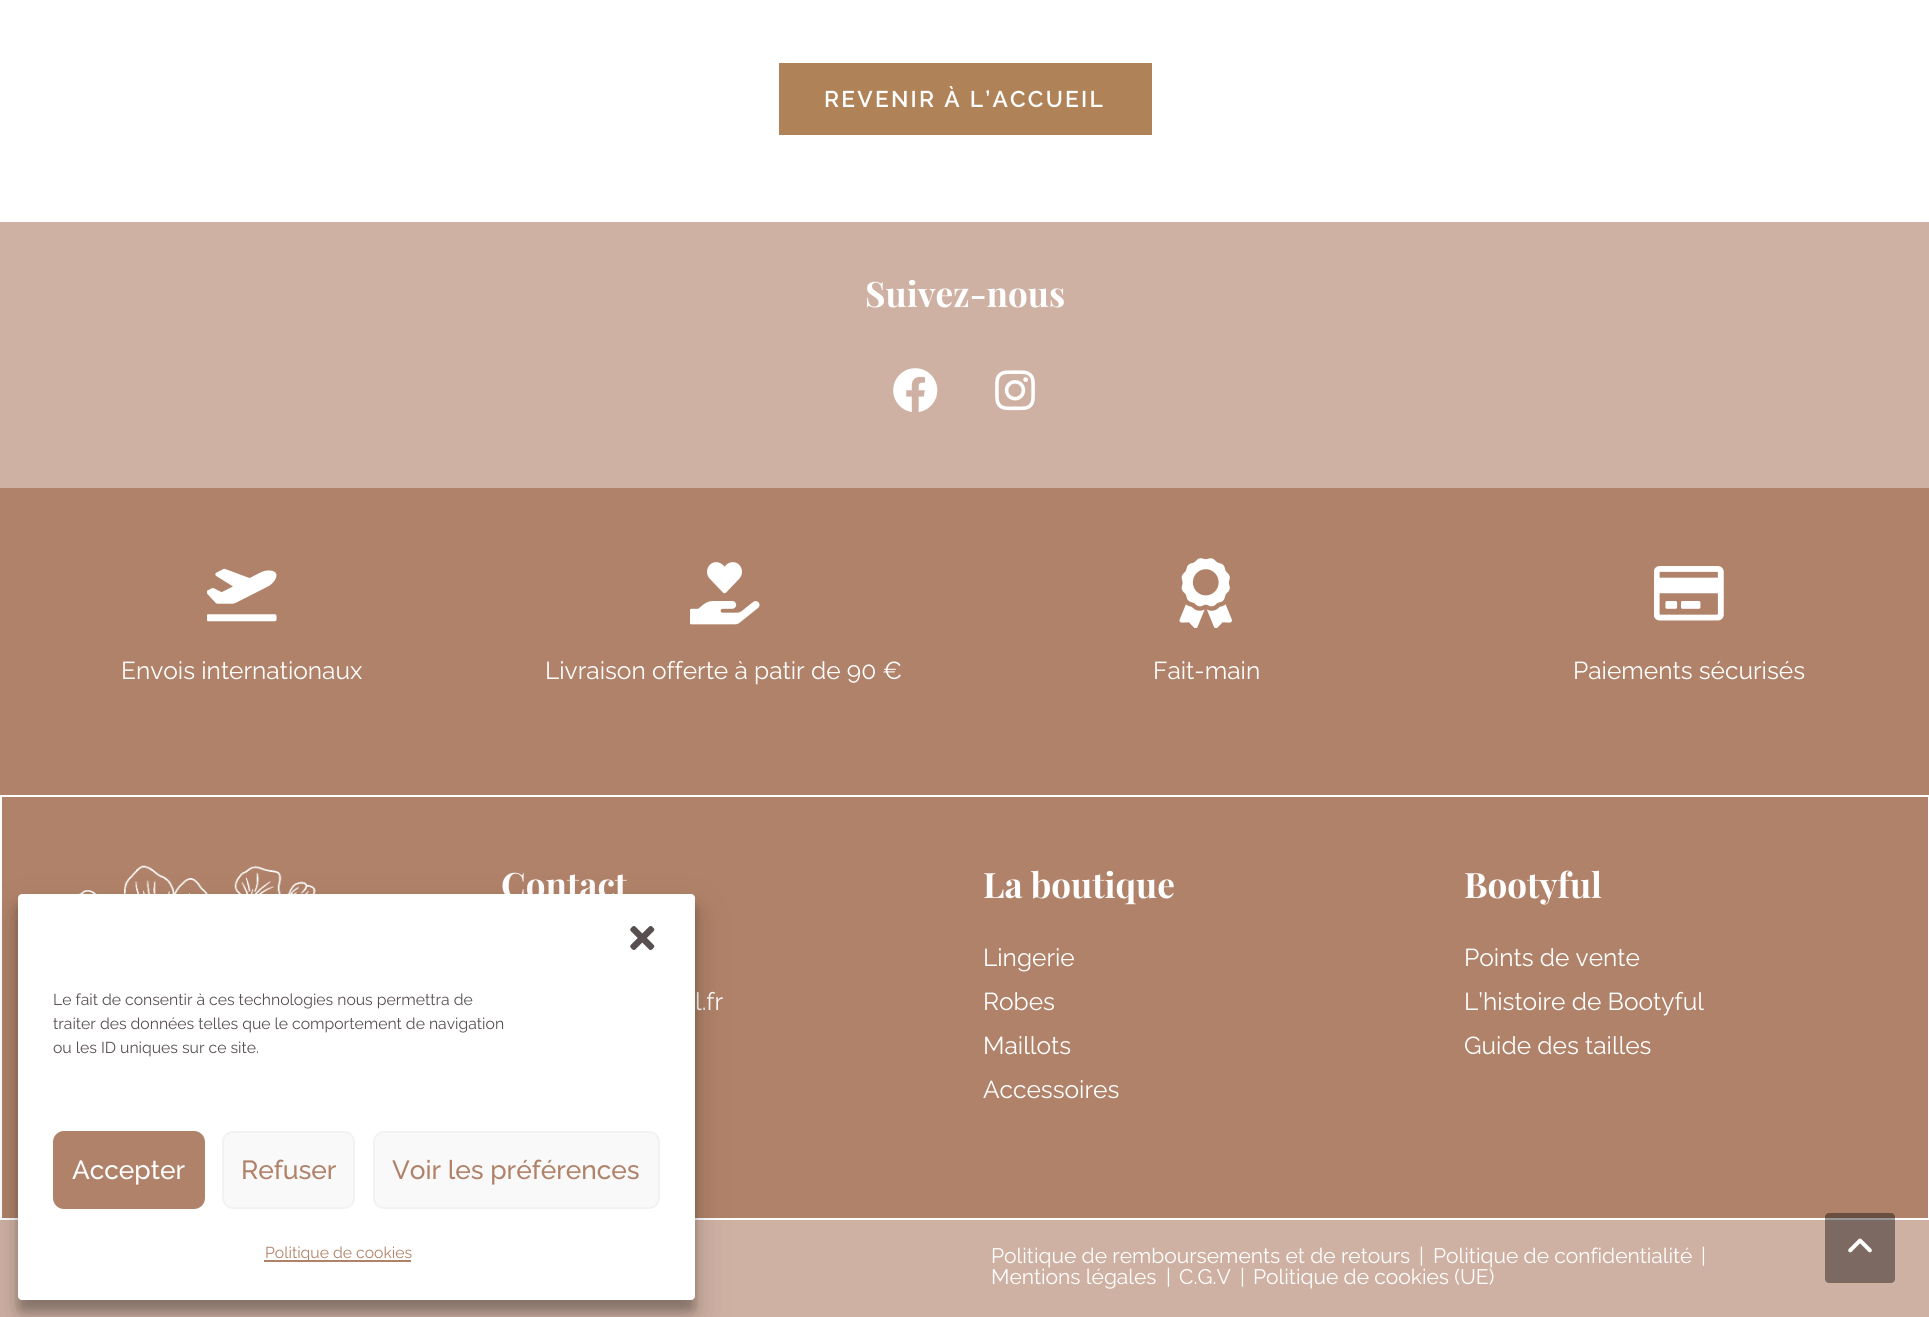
#include <cairo.h>
#include <math.h>
#include <stddef.h>

static cairo_t *c;
static void C(unsigned color){cairo_set_source_rgb(c, (color >> 16) / 255.0, (color >> 8 & 255) / 255.0, (color & 255) / 255.0);}
static void F(const char *family, double size, int italic, int bold){cairo_select_font_face(c, family, italic ? CAIRO_FONT_SLANT_ITALIC : CAIRO_FONT_SLANT_NORMAL,bold ? CAIRO_FONT_WEIGHT_BOLD : CAIRO_FONT_WEIGHT_NORMAL);cairo_set_font_size(c, size);}
static void T(double x, double y, const char *s){cairo_move_to(c, x, y);cairo_show_text(c, s);}
static void L(double x, double y, const char *s, double letter, double word){cairo_move_to(c, x, y);while (*s) {char ch[5] = {0};int n = 0;do ch[n++] = *s++; while ((*s & 0xC0) == 0x80);cairo_show_text(c, ch);cairo_rel_move_to(c, letter + word * (*ch == ' '), 0);}}
static void R(double x, double y, double w, double h){cairo_rectangle(c, x, y, w, h);cairo_fill(c);}
static void Q(double x, double y, double w, double h, double r){cairo_new_sub_path(c);cairo_arc(c, x + w - r, y + h - r, r, 0, M_PI / 2);cairo_arc(c, x + r, y + h - r, r, M_PI / 2, M_PI);cairo_arc(c, x + r, y + r, r, M_PI, 1.5 * M_PI);cairo_arc(c, x + w - r, y + r, r, 1.5 * M_PI, 2 * M_PI);cairo_close_path(c);}
static void S(double x, double y, double w, double h, double r, double blur, double alpha){cairo_push_group_with_content(c, CAIRO_CONTENT_ALPHA);cairo_set_operator(c, CAIRO_OPERATOR_SOURCE);for (int i = 15; i >= -15 && fmin(w, h) + blur * i / 3 > 0; i -= 2) {double e = blur * i / 6;cairo_set_source_rgba(c, 0, 0, 0, alpha * erfc((i - 1) / 8.5) / 2);Q(x - e, y - e, w + 2 * e, h + 2 * e, fmax(0, fmin(r + e + blur * .6, fmin(w, h) / 2 + e)));cairo_fill(c);}cairo_pattern_t *soft = cairo_pop_group(c);cairo_mask(c, soft);cairo_pattern_destroy(soft);}
static void I(const char *path, double x, double y, double w, double h){cairo_surface_t *image = cairo_image_surface_create_from_png(path);cairo_save(c);cairo_set_source_surface(c, image, x, y);cairo_rectangle(c, x, y, w, h);cairo_fill(c);cairo_restore(c);cairo_surface_destroy(image);}
int main(void) {
cairo_surface_t *surface = cairo_image_surface_create(CAIRO_FORMAT_RGB24, 1929, 1317);
c = cairo_create(surface);
cairo_font_options_t *options = cairo_font_options_create();
cairo_font_options_set_hint_metrics(options, CAIRO_HINT_METRICS_OFF);
cairo_font_options_set_hint_style(options, CAIRO_HINT_STYLE_NONE);
cairo_set_font_options(c, options);
cairo_set_miter_limit(c, 4);
C(0xffffff);
cairo_paint(c);
C(0xb08258);
R(779,63,373,72);
F("Raleway SemiBold",22.75,0,0);
C(0xffffff);
L(824,107,"REVENIR À L’ACCUEIL",2.25,0);
C(0xcfb1a3);
R(0,222,1929,266);
F("Playfair Display",35,0,1);
C(0xffffff);
T(865,307,"Suivez-nous");
I("1.png",893,368,45,44);
I("2.png",995,370,40,41);
C(0xb08269);
R(0,488,1929,307);
I("3.png",207,568,70,54);
F("Raleway",24.5,0,0);
C(0xffffff);
T(121,679,"Envois internationaux");
I("4.png",690,562,70,63);
T(545,679,"Livraison offerte à patir de 90 €");
I("5.png",1179,558,53,70);
T(1153,679,"Fait-main");
I("6.png",1654,566,70,55);
T(1573,679,"Paiements sécurisés");
C(0xb08269);
R(2,797,1926,421);
I("7.png",77,865,239,29);
F("Playfair Display",35,0,1);
C(0xffffff);
T(501,898,"Contact");
F("Raleway",24.5,0,0);
T(695,1010,"l.fr");
F("Playfair Display",35,0,1);
T(983,898,"La boutique");
F("Raleway",24.5,0,0);
T(983,966,"Lingerie");
T(983,1010,"Robes");
T(983,1054,"Maillots");
T(983,1098,"Accessoires");
F("Playfair Display",35,0,1);
T(1464,898,"Bootyful");
F("Raleway",24.5,0,0);
T(1464,966,"Points de vente");
T(1464,1010,"L’histoire de Bootyful");
T(1464,1054,"Guide des tailles");
C(0xcfb1a3);
R(0,1220,1929,97);
F("Raleway",21,0,0);
C(0xffffff);
T(991,1263,"Politique de remboursements et de retours");
T(1419,1263,"|");
T(1433,1263,"Politique de confidentialité");
T(1701,1263,"|");
T(991,1284,"Mentions légales");
T(1166,1284,"|");
T(1179,1284,"C.G.V");
T(1240,1284,"|");
T(1253,1284,"Politique de cookies (UE)");
C(0x000000);
S(18,905,677,406,4,5,.23);
S(18,912,677,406,4,17.5,.19);
C(0xffffff);
Q(18,894,677,406,4);
cairo_fill(c);
I("8.png",630,926,25,24);
F("Raleway",15.75,0,0);
C(0x585050);
T(53,1005,"Le fait de consentir à ces technologies nous permettra de");
T(53,1029,"traiter des données telles que le comportement de navigation");
T(53,1053,"ou les ID uniques sur ce site.");
C(0xb08269);
Q(54,1132,150,76,10);
cairo_fill_preserve(c);
cairo_stroke(c);
F("Raleway Medium",26.25,0,0);
C(0xffffff);
T(72,1179,"Accepter");
C(0xf9f9f9);
Q(223,1132,131,76,10);
cairo_fill_preserve(c);
C(0xf2f2f2);
cairo_stroke(c);
C(0xb08269);
T(241,1179,"Refuser");
C(0xf9f9f9);
Q(374,1132,285,76,10);
cairo_fill_preserve(c);
C(0xf2f2f2);
cairo_stroke(c);
C(0xb08269);
T(392,1179,"Voir les préférences");
R(264,1260,147,2);
F("Raleway",15.75,0,0);
T(265,1258,"Politique de cookies");
cairo_set_source_rgba(c,0,0,0,0.4);
Q(1825,1213,70,70,4);
cairo_fill(c);
I("9.png",1848,1238,24,15);
cairo_surface_write_to_png(surface, "o.png");
cairo_font_options_destroy(options);
cairo_destroy(c);
cairo_surface_destroy(surface);
return 0;
}
